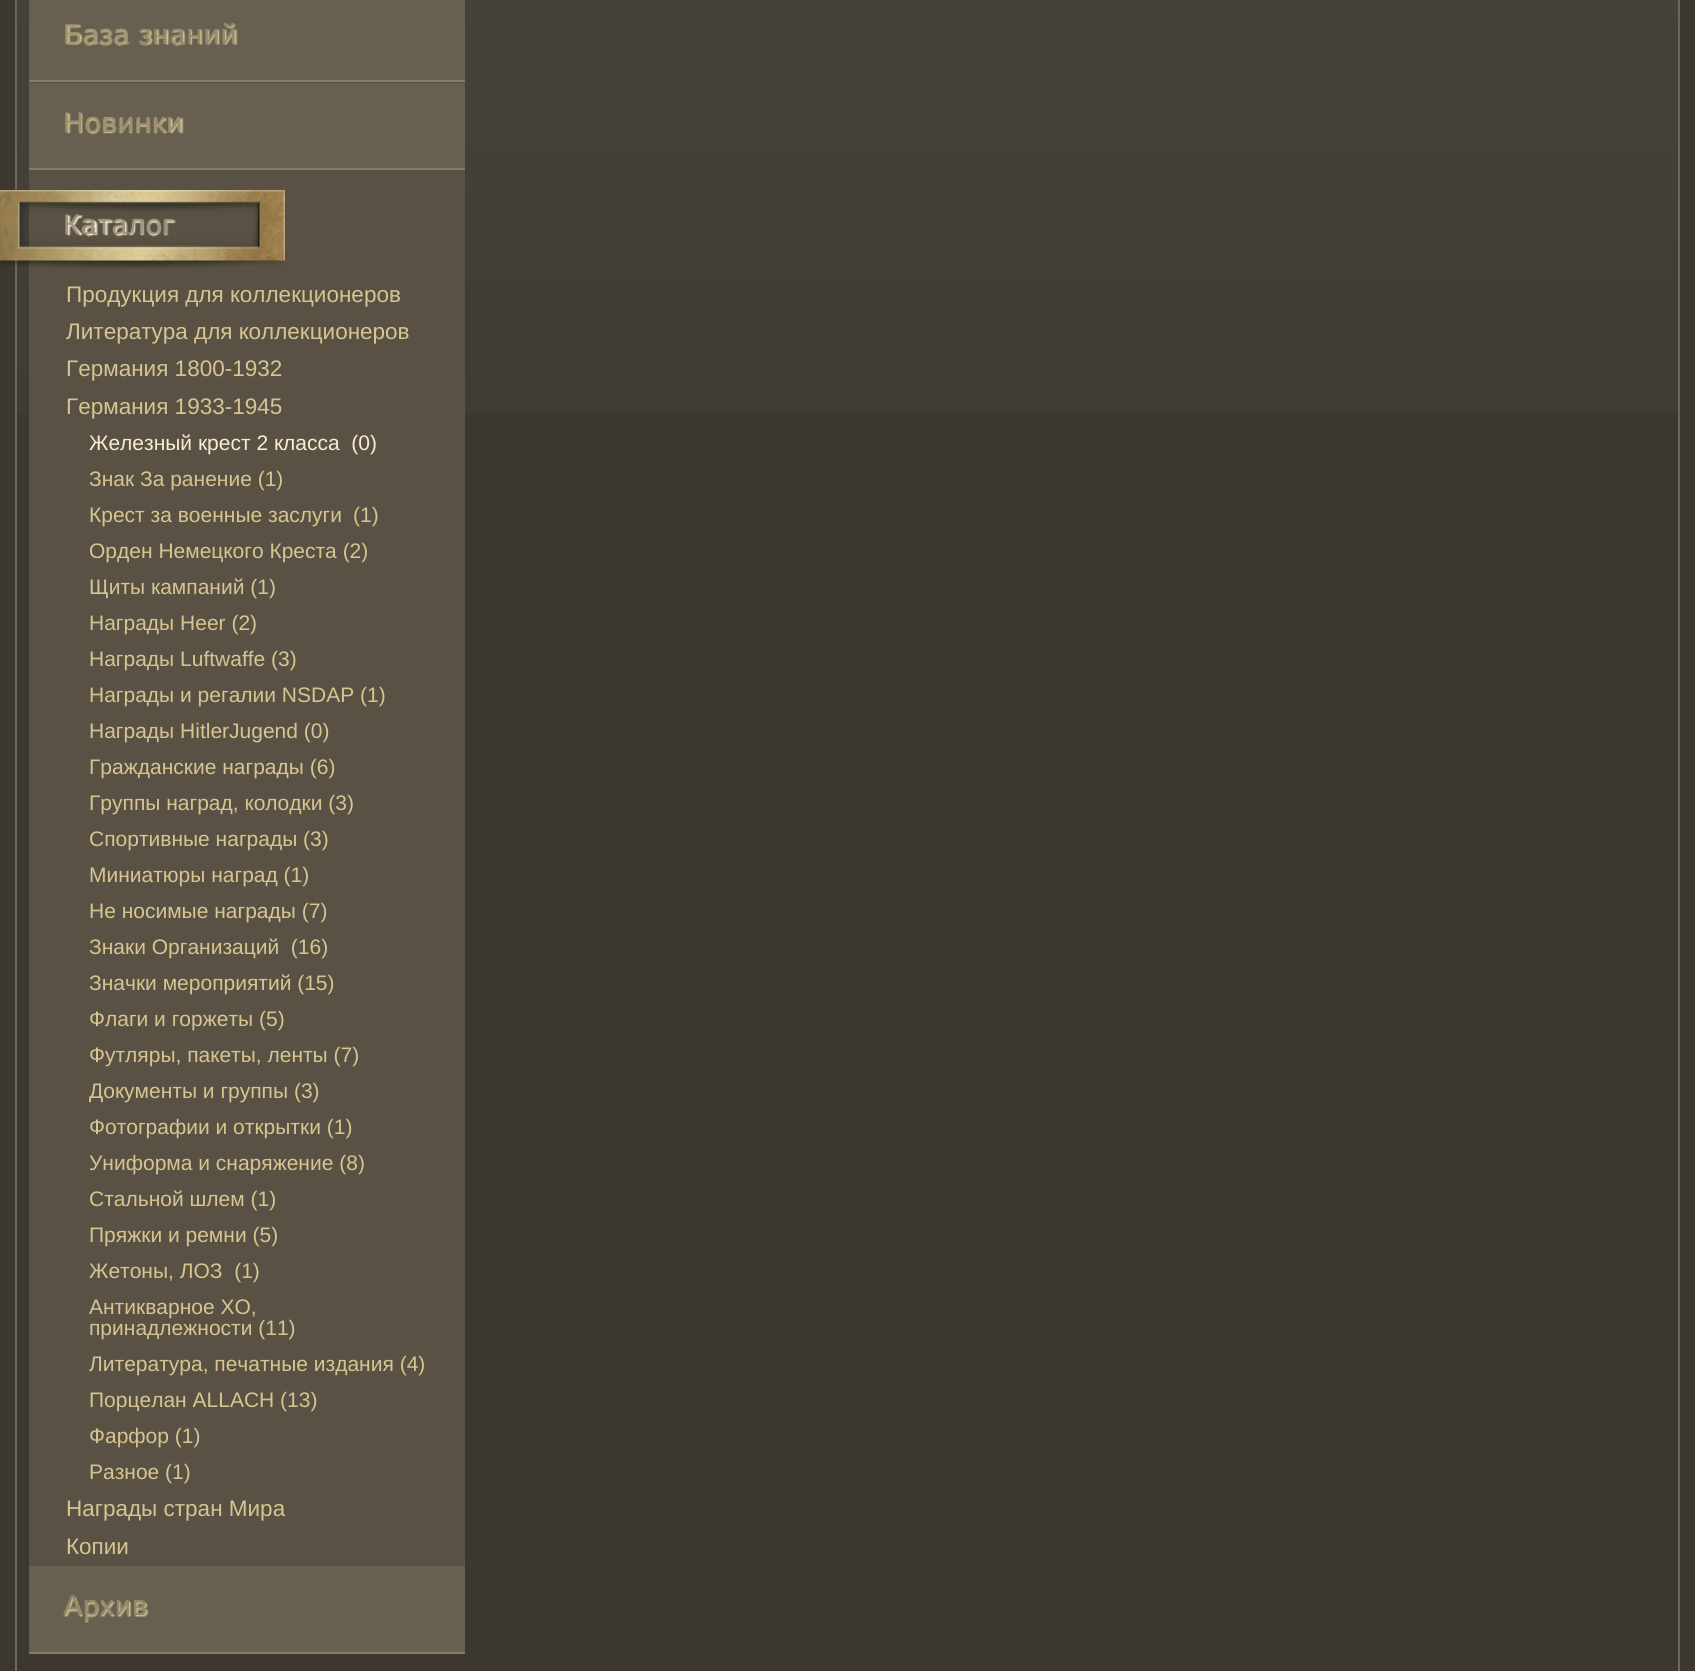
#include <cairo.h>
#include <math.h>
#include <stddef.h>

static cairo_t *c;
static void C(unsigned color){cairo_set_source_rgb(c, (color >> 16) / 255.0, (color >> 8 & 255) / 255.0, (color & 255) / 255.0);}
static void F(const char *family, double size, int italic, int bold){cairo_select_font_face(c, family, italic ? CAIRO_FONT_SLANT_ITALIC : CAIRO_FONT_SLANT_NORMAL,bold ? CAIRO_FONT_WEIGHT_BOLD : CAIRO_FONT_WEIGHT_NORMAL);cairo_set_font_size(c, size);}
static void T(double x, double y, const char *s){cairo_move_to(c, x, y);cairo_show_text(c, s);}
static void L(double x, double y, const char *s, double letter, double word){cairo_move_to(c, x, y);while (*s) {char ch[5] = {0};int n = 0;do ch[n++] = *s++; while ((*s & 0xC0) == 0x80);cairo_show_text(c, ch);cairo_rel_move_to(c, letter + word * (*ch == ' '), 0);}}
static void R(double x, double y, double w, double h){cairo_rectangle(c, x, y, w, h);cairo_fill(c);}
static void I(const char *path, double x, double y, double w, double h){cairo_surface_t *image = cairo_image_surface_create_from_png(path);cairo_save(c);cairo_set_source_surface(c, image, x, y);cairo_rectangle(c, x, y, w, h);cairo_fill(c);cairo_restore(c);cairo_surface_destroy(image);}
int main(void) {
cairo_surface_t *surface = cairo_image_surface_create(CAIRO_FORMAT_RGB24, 1695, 1671);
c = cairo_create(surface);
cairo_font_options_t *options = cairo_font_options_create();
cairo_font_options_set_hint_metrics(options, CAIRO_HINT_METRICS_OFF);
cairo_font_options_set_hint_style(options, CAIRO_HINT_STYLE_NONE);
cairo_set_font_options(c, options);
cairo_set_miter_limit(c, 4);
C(0x3c382f);
cairo_paint(c);
I("1.png",17,0,1661,414);
cairo_rectangle(c,16,-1,1663,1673);
C(0x6a6762);
cairo_stroke(c);
C(0x595244);
R(29,82,436,1484);
C(0x676051);
R(29,0,436,80);
C(0x867d69);
R(29,80,436,2);
I("2.png",139,23,99,24);
F("Liberation Sans",28.5,0,0);
C(0x94896b);
L(138,44,"знаний",1.25,0);
I("3.png",66,24,62,23);
C(0xa39673);
L(63,44,"База",1,0);
C(0x676051);
R(29,83,436,85);
C(0x867d69);
R(29,168,436,2);
I("4.png",66,113,118,22);
C(0x9d9170);
L(63,132,"Новинки",1.25,0);
I("6.png",66,215,110,22);
C(0x9d937e);
L(63,234,"Каталог",1,0);
I("5.png",0,190,285,78);
F("Liberation Sans",22.5,0,0);
C(0xd6c591);
T(66,302,"Продукция для коллекционеров");
T(66,339,"Литература для коллекционеров");
T(66,376,"Германия 1800-1932");
T(66,414,"Германия 1933-1945");
F("Liberation Sans",21,0,0);
C(0xfbeccf);
T(89,450,"Железный крест 2 класса  (0)");
C(0xd6c591);
T(89,486,"Знак За ранение (1)");
T(89,522,"Крест за военные заслуги");
T(353,522,"(1)");
T(89,558,"Орден Немецкого Креста (2)");
T(89,594,"Щиты кампаний (1)");
T(89,630,"Награды Heer (2)");
T(89,666,"Награды Luftwaffe (3)");
T(89,702,"Награды и регалии NSDAP (1)");
T(89,738,"Награды HitlerJugend (0)");
T(89,774,"Гражданские награды (6)");
T(89,810,"Группы наград, колодки (3)");
T(89,846,"Спортивные награды (3)");
T(89,882,"Миниатюры наград (1)");
T(89,918,"Не носимые награды (7)");
T(89,954,"Знаки Организаций  (16)");
T(89,990,"Значки мероприятий (15)");
T(89,1026,"Флаги и горжеты (5)");
T(89,1062,"Футляры, пакеты, ленты (7)");
T(89,1098,"Документы и группы (3)");
T(89,1134,"Фотографии и открытки (1)");
T(89,1170,"Униформа и снаряжение (8)");
T(89,1206,"Стальной шлем (1)");
T(89,1242,"Пряжки и ремни (5)");
T(89,1278,"Жетоны, ЛОЗ  (1)");
T(89,1314,"Антикварное ХО,");
T(89,1335,"принадлежности (11)");
T(89,1371,"Литература, печатные издания (4)");
T(89,1407,"Порцелан ALLACH (13)");
T(89,1443,"Фарфор (1)");
T(89,1479,"Разное (1)");
F("Liberation Sans",22.5,0,0);
T(66,1516,"Награды стран Мира");
T(66,1554,"Копии");
C(0x676051);
R(29,1566,436,86);
C(0x867d69);
R(29,1652,436,2);
I("7.png",64,1596,85,27);
F("Liberation Sans",28.5,0,0);
C(0x94896b);
L(63,1615,"Архив",1,0);
cairo_surface_write_to_png(surface, "o.png");
cairo_font_options_destroy(options);
cairo_destroy(c);
cairo_surface_destroy(surface);
return 0;
}
